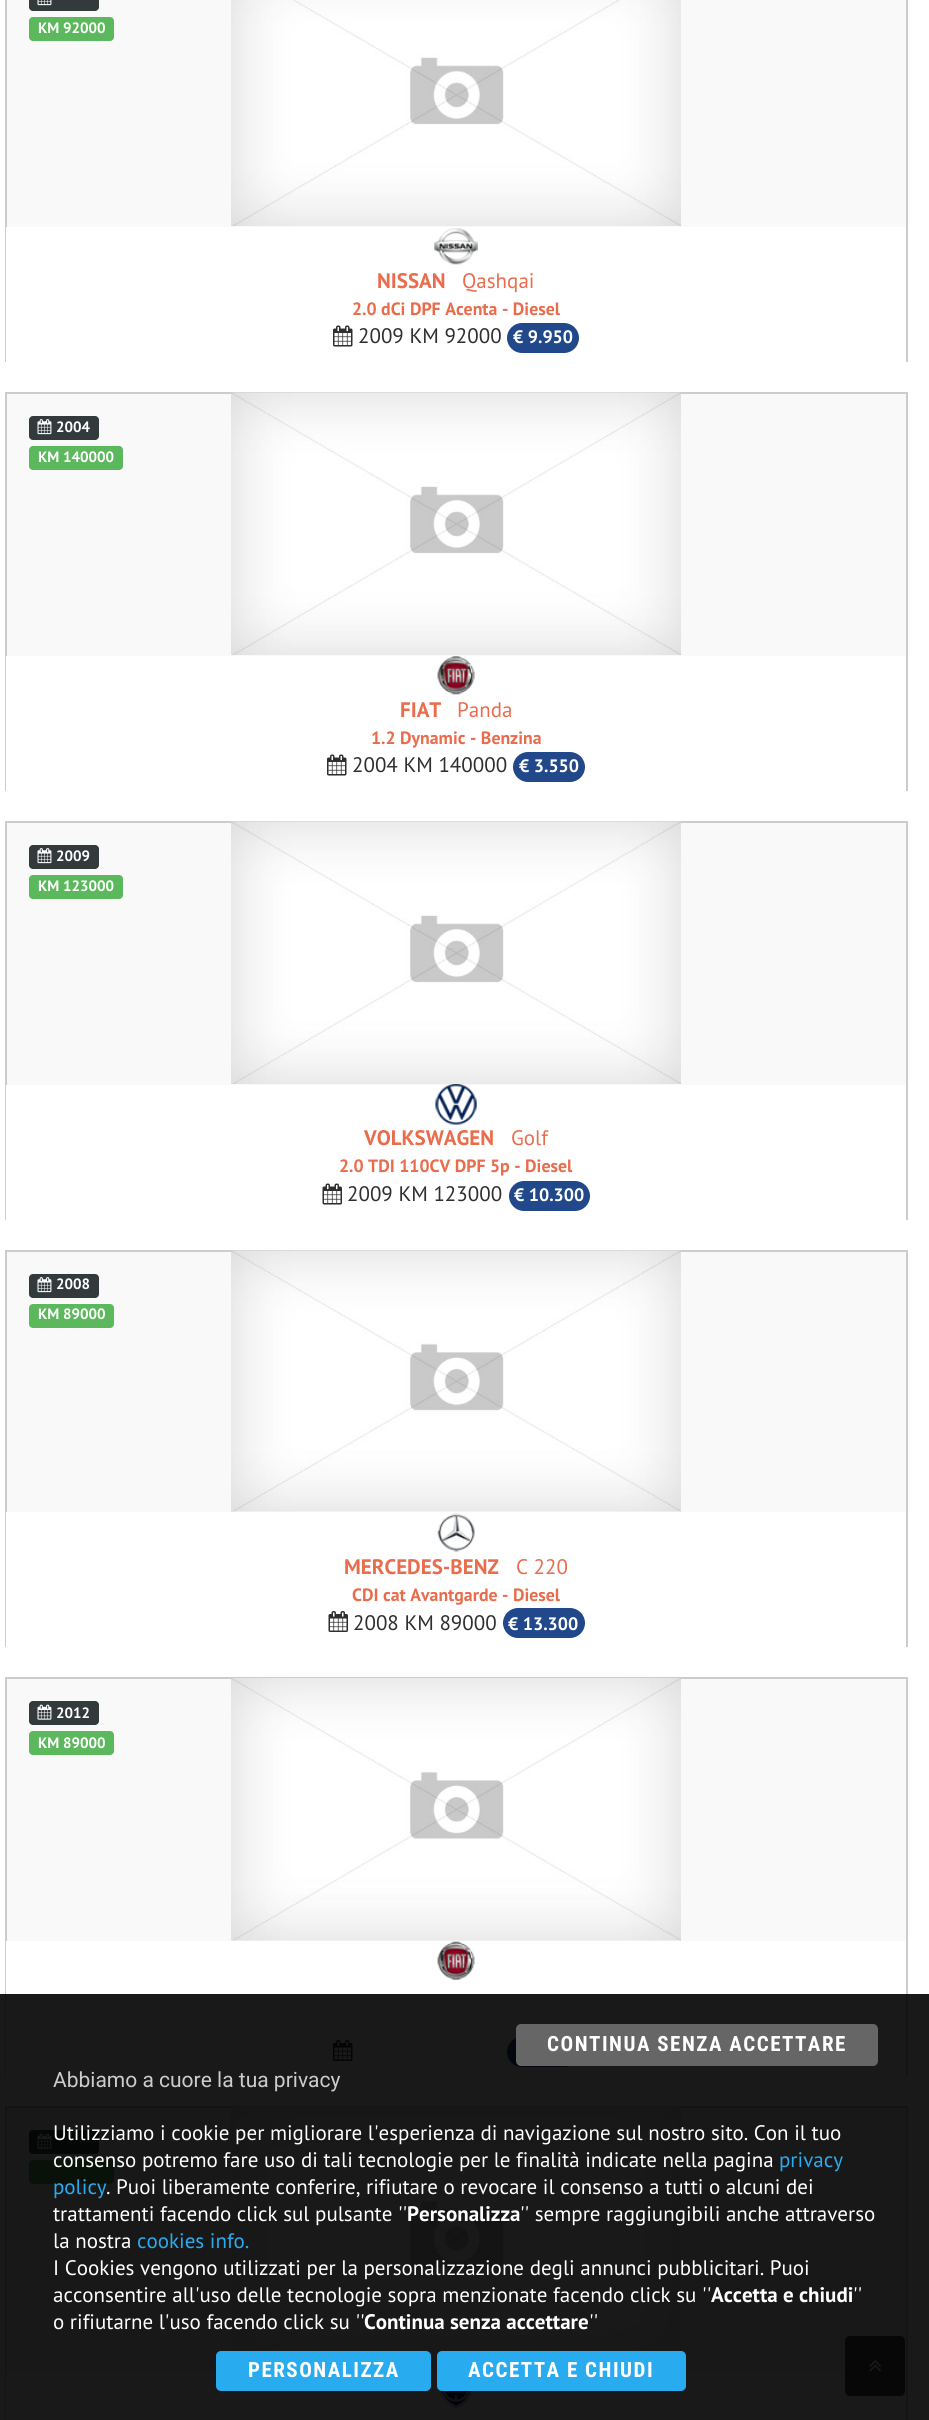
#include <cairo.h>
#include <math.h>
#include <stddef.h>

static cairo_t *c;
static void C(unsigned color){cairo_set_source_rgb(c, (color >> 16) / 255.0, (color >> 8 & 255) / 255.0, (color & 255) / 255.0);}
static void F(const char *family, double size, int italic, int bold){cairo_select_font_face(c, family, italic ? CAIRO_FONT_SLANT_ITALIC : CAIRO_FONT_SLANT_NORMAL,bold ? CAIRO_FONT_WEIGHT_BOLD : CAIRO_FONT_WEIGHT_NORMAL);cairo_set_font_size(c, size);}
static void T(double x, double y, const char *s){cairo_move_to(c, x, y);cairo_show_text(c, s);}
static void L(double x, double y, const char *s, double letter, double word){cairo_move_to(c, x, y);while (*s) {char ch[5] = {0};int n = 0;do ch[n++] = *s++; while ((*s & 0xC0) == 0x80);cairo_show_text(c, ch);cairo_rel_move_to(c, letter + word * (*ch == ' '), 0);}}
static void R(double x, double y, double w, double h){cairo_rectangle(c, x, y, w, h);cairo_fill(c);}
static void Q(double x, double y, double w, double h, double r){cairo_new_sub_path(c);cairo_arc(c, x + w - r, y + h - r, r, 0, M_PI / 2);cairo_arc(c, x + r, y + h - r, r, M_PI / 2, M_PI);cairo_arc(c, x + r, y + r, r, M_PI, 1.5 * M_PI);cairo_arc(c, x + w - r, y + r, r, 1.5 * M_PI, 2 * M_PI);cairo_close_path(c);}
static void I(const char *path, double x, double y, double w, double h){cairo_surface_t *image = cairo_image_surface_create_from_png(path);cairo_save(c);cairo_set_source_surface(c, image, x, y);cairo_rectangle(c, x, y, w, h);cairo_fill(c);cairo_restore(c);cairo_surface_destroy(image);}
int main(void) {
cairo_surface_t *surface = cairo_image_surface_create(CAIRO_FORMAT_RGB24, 929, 2420);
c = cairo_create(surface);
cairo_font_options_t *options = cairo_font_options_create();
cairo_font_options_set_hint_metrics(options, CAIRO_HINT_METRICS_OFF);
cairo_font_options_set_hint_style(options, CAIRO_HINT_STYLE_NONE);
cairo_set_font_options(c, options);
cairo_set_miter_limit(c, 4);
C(0xffffff);
cairo_paint(c);
C(0xf9f9f9);
R(7,0,899,227);
C(0xcccccc);
R(906,0,2,362);
R(5,0,2,362);
C(0x323a3c);
Q(29,-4,70,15,4);
cairo_fill(c);
I("1.png",37,0,15,6);
I("2.png",231,0,450,226);
C(0x5cb85c);
Q(29,17,85,24,4);
cairo_fill(c);
F("PT Sans",15,0,1);
C(0xffffff);
T(38,33,"KM 92000");
R(6,227,1,135);
I("3.png",434,228,44,37);
F("PT Sans",21,0,1);
C(0xe96c4c);
T(377,288,"NISSAN");
F("PT Sans",21,0,0);
T(462,288,"Qashqai");
F("PT Sans",17.8,0,1);
T(352,315,"2.0 dCi DPF Acenta - Diesel");
I("4.png",333,325,20,22);
F("PT Sans",21,0,0);
C(0x2f2f2f);
T(358,343,"2009 KM 92000");
C(0x21488b);
Q(507,323,72,30,15);
cairo_fill(c);
F("PT Sans",18,0,1);
C(0xffffff);
T(513,343,"€ 9.950");
C(0xf9f9f9);
R(7,394,899,262);
C(0xcccccc);
R(5,392,903,2);
R(906,392,2,399);
R(5,392,2,399);
C(0x323a3c);
Q(29,416,70,24,4);
cairo_fill(c);
I("5.png",37,419,15,16);
F("PT Sans",15,0,1);
C(0xffffff);
T(56,432,"2004");
I("6.png",231,392,450,263);
C(0x5cb85c);
Q(29,446,94,24,4);
cairo_fill(c);
C(0xffffff);
T(38,462,"KM 140000");
R(6,656,1,135);
I("7.png",437,656,38,39);
F("PT Sans",21,0,1);
C(0xe96c4c);
T(400,717,"FIAT");
F("PT Sans",21,0,0);
T(457,717,"Panda");
F("PT Sans",17.8,0,1);
T(371,744,"1.2 Dynamic - Benzina");
I("4.png",327,754,20,22);
F("PT Sans",21,0,0);
C(0x2f2f2f);
T(352,772,"2004 KM 140000");
C(0x21488b);
Q(513,752,72,30,15);
cairo_fill(c);
F("PT Sans",18,0,1);
C(0xffffff);
T(519,772,"€ 3.550");
C(0xf9f9f9);
R(7,823,899,262);
C(0xcccccc);
R(5,821,903,2);
R(906,821,2,399);
R(5,821,2,399);
C(0x323a3c);
Q(29,845,70,24,4);
cairo_fill(c);
I("5.png",37,848,15,16);
F("PT Sans",15,0,1);
C(0xffffff);
T(56,861,"2009");
I("6.png",231,821,450,263);
C(0x5cb85c);
Q(29,875,94,24,4);
cairo_fill(c);
C(0xffffff);
T(38,891,"KM 123000");
R(6,1085,1,135);
I("8.png",435,1084,42,41);
F("PT Sans",21,0,1);
C(0xe96c4c);
T(364,1145,"VOLKSWAGEN");
F("PT Sans",21,0,0);
T(511,1145,"Golf");
F("PT Sans",17.8,0,1);
T(339,1172,"2.0 TDI 110CV DPF 5p - Diesel");
I("9.png",322,1183,20,22);
F("PT Sans",21,0,0);
C(0x2f2f2f);
T(347,1201,"2009 KM 123000");
C(0x21488b);
Q(509,1181,81,30,15);
cairo_fill(c);
F("PT Sans",18,0,1);
C(0xffffff);
T(514,1201,"€ 10.300");
C(0xf9f9f9);
R(7,1252,899,260);
C(0xcccccc);
R(5,1250,903,2);
R(906,1250,2,397);
R(5,1250,2,397);
C(0x323a3c);
Q(29,1274,70,24,4);
cairo_fill(c);
I("5.png",37,1277,15,16);
F("PT Sans",15,0,1);
C(0xffffff);
T(56,1289,"2008");
I("10.png",231,1250,450,262);
C(0x5cb85c);
Q(29,1304,85,24,4);
cairo_fill(c);
C(0xffffff);
T(38,1319,"KM 89000");
R(6,1512,1,135);
I("11.png",437,1512,38,40);
F("PT Sans",21,0,1);
C(0xe96c4c);
T(344,1574,"MERCEDES-BENZ");
F("PT Sans",21,0,0);
T(516,1574,"C 220");
F("PT Sans",17.8,0,1);
T(352,1601,"CDI cat Avantgarde - Diesel");
I("12.png",328,1611,20,21);
F("PT Sans",21,0,0);
C(0x2f2f2f);
T(353,1630,"2008 KM 89000");
C(0x21488b);
Q(503,1608,82,30,15);
cairo_fill(c);
F("PT Sans",18,0,1);
C(0xffffff);
T(508,1630,"€ 13.300");
C(0xf9f9f9);
R(7,1679,899,262);
C(0xcccccc);
R(5,1677,903,2);
R(906,1677,2,399);
R(5,1677,2,399);
C(0x323a3c);
Q(29,1701,70,24,4);
cairo_fill(c);
I("13.png",37,1704,15,16);
F("PT Sans",15,0,1);
C(0xffffff);
T(56,1718,"2012");
I("14.png",231,1678,450,263);
C(0x5cb85c);
Q(29,1731,85,24,4);
cairo_fill(c);
C(0xffffff);
T(38,1748,"KM 89000");
R(6,1941,1,135);
I("15.png",437,1941,38,39);
I("16.png",333,2040,20,21);
C(0x21488b);
Q(507,2037,72,30,15);
cairo_fill(c);
C(0xf9f9f9);
R(7,2108,899,262);
C(0xcccccc);
R(5,2106,903,2);
R(906,2106,2,314);
R(5,2106,2,314);
C(0x323a3c);
Q(29,2130,70,24,4);
cairo_fill(c);
I("13.png",37,2133,15,16);
I("14.png",231,2107,450,263);
C(0x5cb85c);
Q(29,2160,85,24,4);
cairo_fill(c);
C(0xffffff);
R(6,2370,1,50);
I("17.png",437,2386,37,23);
cairo_set_source_rgba(c,0,0,0,0.7);
Q(845,2336,60,60,5);
cairo_fill(c);
I("18.png",869,2360,13,12);
cairo_set_source_rgba(c,0,0,0,0.9);
R(0,1994,929,426);
C(0x666666);
Q(516,2024,362,42,5);
cairo_fill(c);
F("Roboto Condensed",21,0,1);
C(0xffffff);
L(547,2051,"CONTINUA SENZA ACCETTARE",1.5,0);
F("Roboto",21,0,0);
C(0xcccccc);
T(53,2087,"Abbiamo a cuore la tua privacy");
F("PT Sans",21,0,0);
C(0xffffff);
T(53,2140,"Utilizziamo i cookie per migliorare l'esperienza di navigazione sul nostro sito. Con il tuo");
T(53,2167,"consenso potremo fare uso di tali tecnologie per le finalità indicate nella pagina");
C(0x29abef);
T(779,2167,"privacy");
T(53,2194,"policy");
C(0xffffff);
T(106,2194,". Puoi liberamente conferire, rifiutare o revocare il consenso a tutti o alcuni dei");
T(53,2221,"trattamenti facendo click sul pulsante ''");
F("PT Sans",21,0,1);
T(407,2221,"Personalizza");
F("PT Sans",21,0,0);
T(520,2221,"'' sempre raggiungibili anche attraverso");
T(53,2248,"la nostra");
C(0x29abef);
T(137,2248,"cookies info.");
C(0xffffff);
T(53,2275,"I Cookies vengono utilizzati per la personalizzazione degli annunci pubblicitari. Puoi");
T(53,2302,"acconsentire all'uso delle tecnologie sopra menzionate facendo click su ''");
F("PT Sans",21,0,1);
T(711,2302,"Accetta e chiudi");
F("PT Sans",21,0,0);
T(853,2302,"''");
T(53,2329,"o rifiutarne l'uso facendo click su ''");
F("PT Sans",21,0,1);
T(364,2329,"Continua senza accettare");
F("PT Sans",21,0,0);
T(589,2329,"''");
C(0x29abef);
Q(216,2351,215,40,5);
cairo_fill(c);
F("Roboto Condensed",21,0,1);
C(0xffffff);
L(248,2377,"PERSONALIZZA",1.5,0);
C(0x29abef);
Q(437,2351,249,40,5);
cairo_fill(c);
C(0xffffff);
L(468,2377,"ACCETTA E CHIUDI",1.5,0);
cairo_surface_write_to_png(surface, "o.png");
cairo_font_options_destroy(options);
cairo_destroy(c);
cairo_surface_destroy(surface);
return 0;
}
